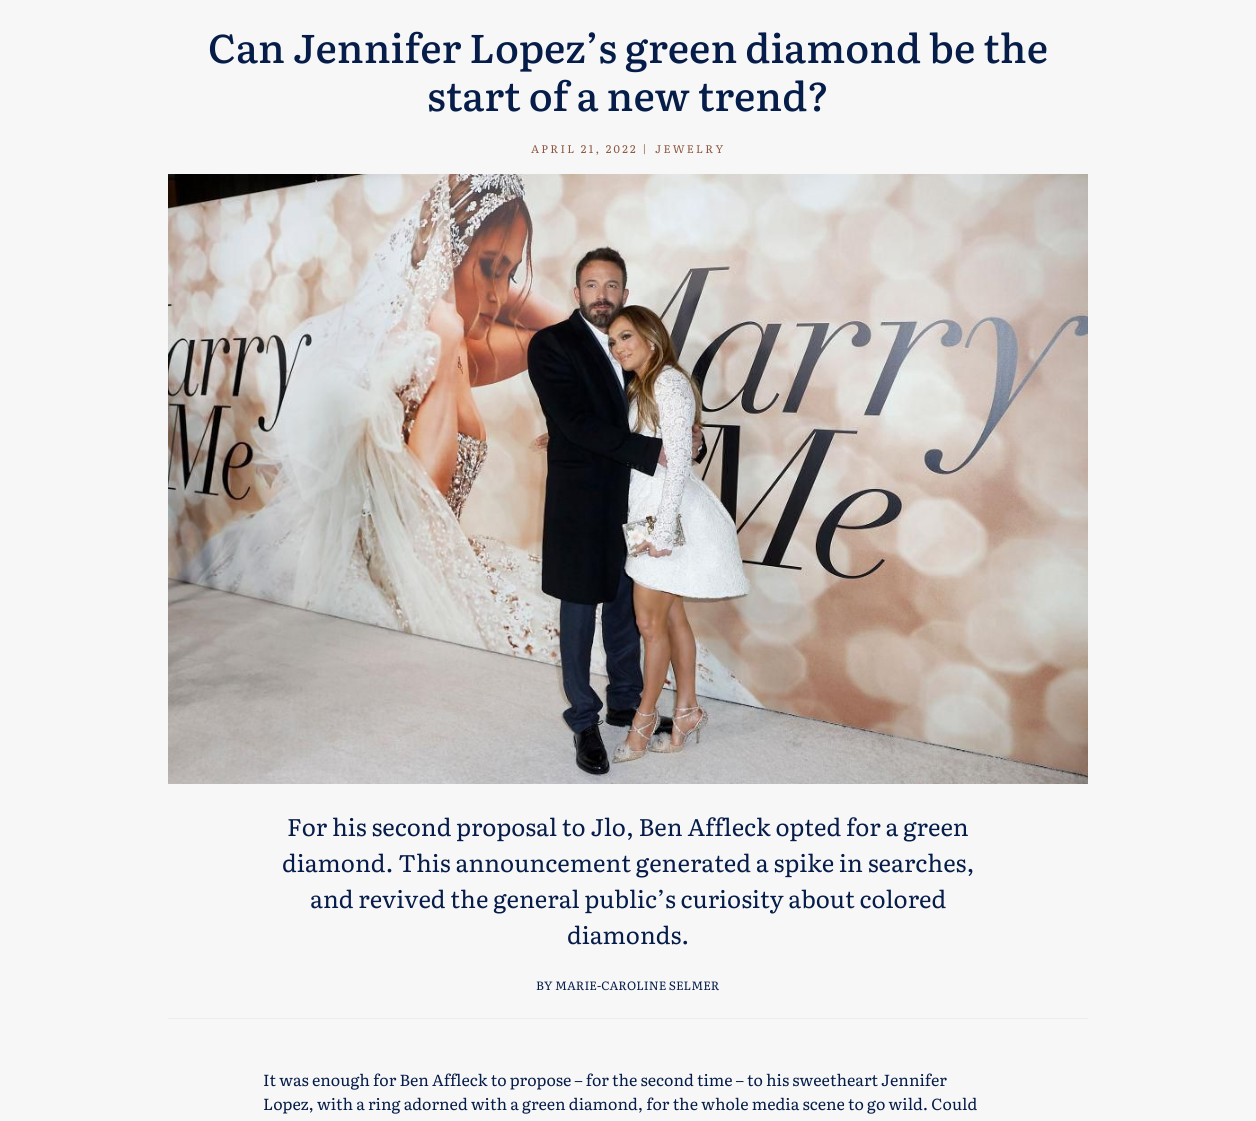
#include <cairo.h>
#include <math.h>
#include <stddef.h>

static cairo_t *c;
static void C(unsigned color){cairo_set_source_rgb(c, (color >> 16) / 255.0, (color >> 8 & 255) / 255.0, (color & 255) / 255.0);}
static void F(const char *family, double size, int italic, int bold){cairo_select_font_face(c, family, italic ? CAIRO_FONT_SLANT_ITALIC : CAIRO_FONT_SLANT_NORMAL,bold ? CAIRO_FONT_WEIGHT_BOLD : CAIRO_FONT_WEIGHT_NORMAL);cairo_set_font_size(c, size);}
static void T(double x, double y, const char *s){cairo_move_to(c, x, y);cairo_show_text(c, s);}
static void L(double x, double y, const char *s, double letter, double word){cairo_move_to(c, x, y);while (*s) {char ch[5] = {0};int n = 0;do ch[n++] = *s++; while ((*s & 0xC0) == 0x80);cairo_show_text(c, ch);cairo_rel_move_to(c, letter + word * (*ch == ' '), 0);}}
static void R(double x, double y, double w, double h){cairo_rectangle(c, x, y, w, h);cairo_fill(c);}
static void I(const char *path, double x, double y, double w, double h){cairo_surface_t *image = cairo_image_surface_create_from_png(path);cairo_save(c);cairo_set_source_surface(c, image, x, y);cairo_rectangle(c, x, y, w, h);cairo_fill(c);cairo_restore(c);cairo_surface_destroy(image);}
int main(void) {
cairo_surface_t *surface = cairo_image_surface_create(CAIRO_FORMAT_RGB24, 1256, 1121);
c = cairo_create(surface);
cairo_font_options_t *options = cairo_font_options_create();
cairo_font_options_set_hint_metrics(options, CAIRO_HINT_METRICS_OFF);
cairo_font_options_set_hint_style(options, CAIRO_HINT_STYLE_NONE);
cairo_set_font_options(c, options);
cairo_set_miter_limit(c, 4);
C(0xf7f7f8);
cairo_paint(c);
F("Literata Medium",40,0,0);
C(0x071d49);
T(208,63,"Can Jennifer Lopez’s green diamond be the");
T(427,111,"start of a new trend?");
F("Literata",11,0,0);
C(0x8e5840);
L(531,153,"APRIL 21, 2022",2.25,0);
L(642,153,"|",3,0);
L(655,153,"JEWELRY",2.25,0);
I("1.png",168,174,920,610);
F("Literata",24,0,0);
C(0x071d49);
T(287,836,"For his second proposal to Jlo, Ben Affleck opted for a green");
T(282,872,"diamond. This announcement generated a spike in searches,");
T(310,908,"and revived the general public’s curiosity about colored");
T(567,944,"diamonds.");
F("Literata",12,0,0);
T(536,990,"BY MARIE-CAROLINE SELMER");
C(0xededed);
R(168,1018,920,1);
F("Literata",16,0,0);
C(0x071d49);
T(263,1086,"It was enough for Ben Affleck to propose – for the second time – to his sweetheart Jennifer");
T(263,1110,"Lopez, with a ring adorned with a green diamond, for the whole media scene to go wild. Could");
cairo_surface_write_to_png(surface, "o.png");
cairo_font_options_destroy(options);
cairo_destroy(c);
cairo_surface_destroy(surface);
return 0;
}
